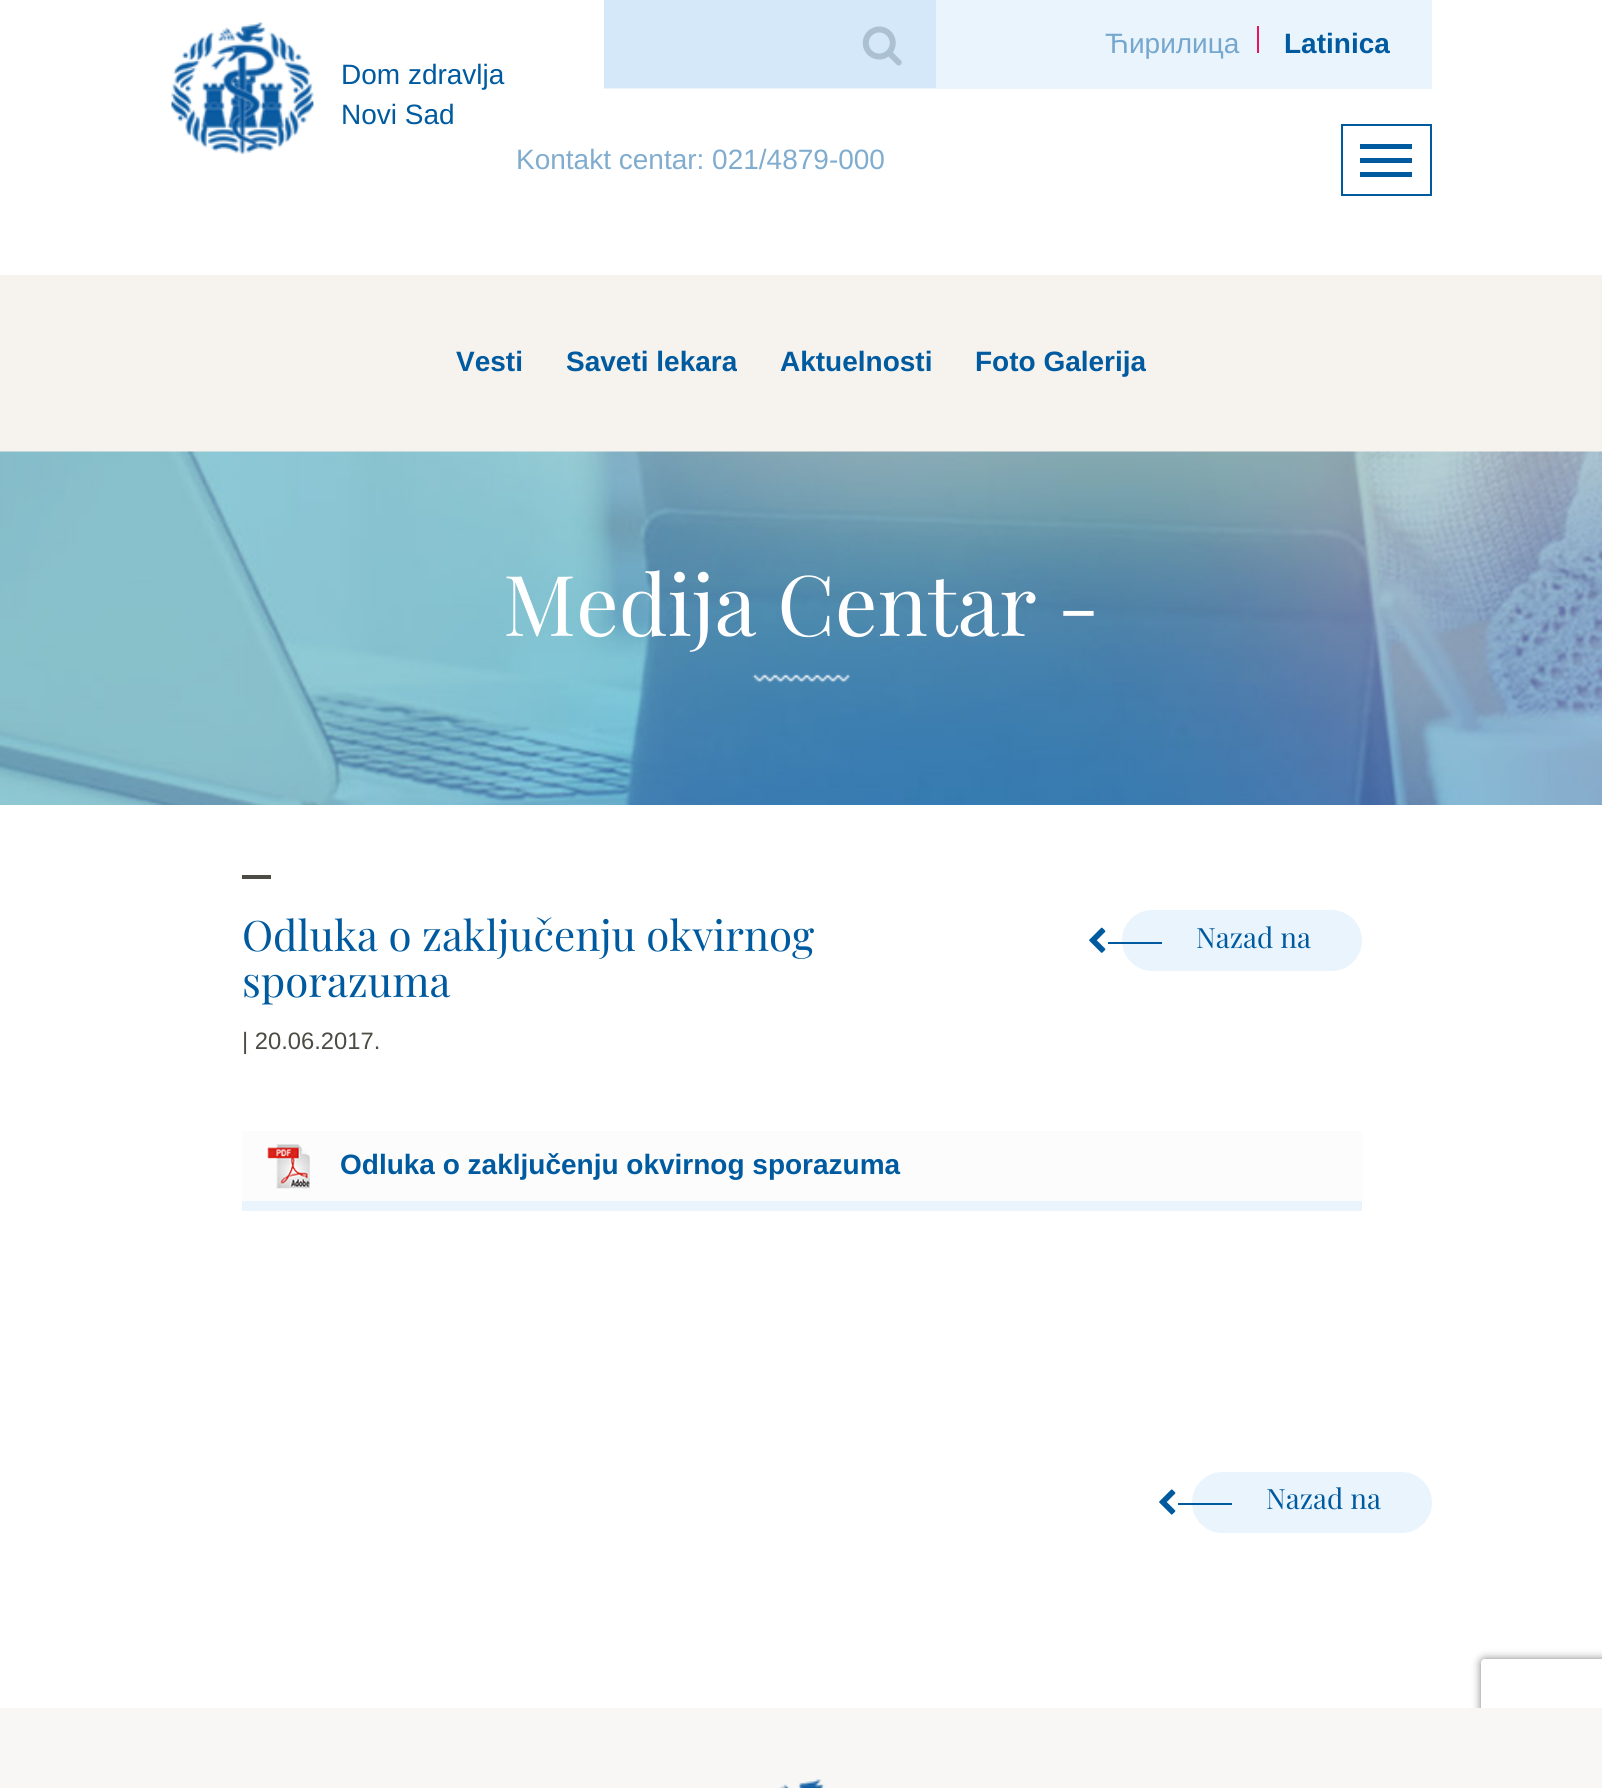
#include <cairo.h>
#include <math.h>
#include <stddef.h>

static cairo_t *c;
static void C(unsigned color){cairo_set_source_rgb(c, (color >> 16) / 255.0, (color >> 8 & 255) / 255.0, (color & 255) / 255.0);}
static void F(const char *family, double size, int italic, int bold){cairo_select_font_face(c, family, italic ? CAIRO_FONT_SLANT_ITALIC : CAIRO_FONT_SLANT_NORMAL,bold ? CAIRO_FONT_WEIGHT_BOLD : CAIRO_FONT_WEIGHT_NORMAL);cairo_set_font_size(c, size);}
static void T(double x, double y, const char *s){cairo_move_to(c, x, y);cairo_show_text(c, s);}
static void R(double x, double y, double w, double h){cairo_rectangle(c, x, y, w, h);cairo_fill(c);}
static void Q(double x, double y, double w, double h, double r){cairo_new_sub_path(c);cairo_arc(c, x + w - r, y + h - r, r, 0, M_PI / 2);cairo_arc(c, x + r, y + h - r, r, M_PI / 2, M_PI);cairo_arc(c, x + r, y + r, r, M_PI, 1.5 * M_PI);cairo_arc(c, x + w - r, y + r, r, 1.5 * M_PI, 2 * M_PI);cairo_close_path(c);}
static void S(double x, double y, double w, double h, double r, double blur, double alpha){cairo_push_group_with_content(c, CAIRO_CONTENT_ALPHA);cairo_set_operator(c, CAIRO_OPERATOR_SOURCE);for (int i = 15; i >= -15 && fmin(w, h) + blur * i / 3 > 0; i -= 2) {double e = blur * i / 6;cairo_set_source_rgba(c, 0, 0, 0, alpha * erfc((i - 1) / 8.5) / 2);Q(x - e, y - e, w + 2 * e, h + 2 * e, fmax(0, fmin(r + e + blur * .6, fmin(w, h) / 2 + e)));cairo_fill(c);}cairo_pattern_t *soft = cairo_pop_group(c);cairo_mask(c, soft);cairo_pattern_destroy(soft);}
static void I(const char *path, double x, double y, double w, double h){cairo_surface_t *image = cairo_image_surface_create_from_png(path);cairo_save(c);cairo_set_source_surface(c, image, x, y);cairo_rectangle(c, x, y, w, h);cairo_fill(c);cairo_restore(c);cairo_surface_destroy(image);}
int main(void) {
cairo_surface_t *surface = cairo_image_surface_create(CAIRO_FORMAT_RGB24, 1602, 1788);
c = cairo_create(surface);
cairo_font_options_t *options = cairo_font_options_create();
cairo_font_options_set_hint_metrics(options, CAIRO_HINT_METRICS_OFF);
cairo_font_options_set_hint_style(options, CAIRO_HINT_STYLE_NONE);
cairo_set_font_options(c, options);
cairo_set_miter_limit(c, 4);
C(0xffffff);
cairo_paint(c);
C(0xeaf4fc);
R(604,0,828,89);
C(0xd4e8f9);
R(604,0,332,88);
I("1.png",862,26,40,40);
F("Liberation Sans",28,0,0);
C(0x75a7ce);
T(1105,53,"Ћирилица");
C(0xed145b);
R(1257,26,2,27);
F("Liberation Sans",28,0,1);
C(0x005a9f);
T(1284,53,"Latinica");
I("2.png",171,22,143,132);
F("Liberation Sans",28,0,0);
T(341,84,"Dom zdravlja");
T(341,124,"Novi Sad");
C(0x80adcf);
T(516,169,"Kontakt centar: 021/4879-000");
cairo_rectangle(c,1342,125,89,70);
C(0x005a9f);
cairo_stroke(c);
R(1360,144,52,5);
R(1360,158,52,5);
R(1360,172,52,5);
C(0xf6f2ed);
R(0,275,1602,177);
F("Liberation Sans",28,0,1);
C(0x005a9f);
T(456,371,"Vesti");
cairo_save(c);
cairo_rectangle(c,567,329,170,68);
cairo_clip(c);
T(566,371,"Saveti lekara");
cairo_restore(c);
T(780,371,"Aktuelnosti");
cairo_save(c);
cairo_rectangle(c,975,329,171,68);
cairo_clip(c);
T(975,371,"Foto Galerija");
cairo_restore(c);
I("3.png",0,451,1602,354);
F("Playfair Display",84,0,0);
C(0xffffff);
T(503,636,"Medija Centar -");
I("4.png",752,673,99,10);
C(0x4c4c45);
R(242,875,29,4);
F("Playfair Display",42,0,0);
C(0x005a9f);
T(242,951,"Odluka o zaključenju okvirnog");
T(242,997,"sporazuma");
C(0xeaf4fc);
Q(1122,910,240,61,30.5);
cairo_fill(c);
I("5.png",1089,927,17,26);
C(0x005a9f);
R(1108,942,54,2);
F("Playfair Display",28,0,0);
T(1196,948,"Nazad na");
F("Liberation Sans",23.75,0,0);
C(0x4c4c45);
T(242,1049,"| 20.06.2017.");
C(0xfcfcfc);
R(242,1131,1120,70);
C(0xeaf4fc);
R(242,1201,1120,10);
I("6.png",267,1144,43,45);
F("Liberation Sans",28,0,1);
C(0x005a9f);
T(340,1174,"Odluka o zaključenju okvirnog sporazuma");
C(0xeaf4fc);
Q(1192,1472,240,61,30.5);
cairo_fill(c);
I("7.png",1159,1489,17,26);
C(0x005a9f);
R(1178,1503,54,2);
F("Playfair Display",28,0,0);
T(1266,1509,"Nazad na");
cairo_save(c);
cairo_set_fill_rule(c,CAIRO_FILL_RULE_EVEN_ODD);
cairo_new_path(c);
cairo_move_to(c,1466,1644);
cairo_line_to(c,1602,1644);
cairo_line_to(c,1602,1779);
cairo_line_to(c,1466,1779);
cairo_close_path(c);
cairo_move_to(c,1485,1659);
cairo_line_to(c,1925,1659);
cairo_curve_to(c,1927,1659,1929,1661,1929,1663);
cairo_line_to(c,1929,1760);
cairo_curve_to(c,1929,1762,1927,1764,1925,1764);
cairo_line_to(c,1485,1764);
cairo_curve_to(c,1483,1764,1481,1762,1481,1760);
cairo_line_to(c,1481,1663);
cairo_curve_to(c,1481,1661,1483,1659,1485,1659);
cairo_close_path(c);
cairo_clip(c);
C(0x808080);
S(1481,1659,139,105,4,4.5,1);
cairo_restore(c);
C(0xf8f7f6);
R(0,1708,1602,80);
I("8.png",780,1779,45,9);
cairo_surface_write_to_png(surface, "o.png");
cairo_font_options_destroy(options);
cairo_destroy(c);
cairo_surface_destroy(surface);
return 0;
}
